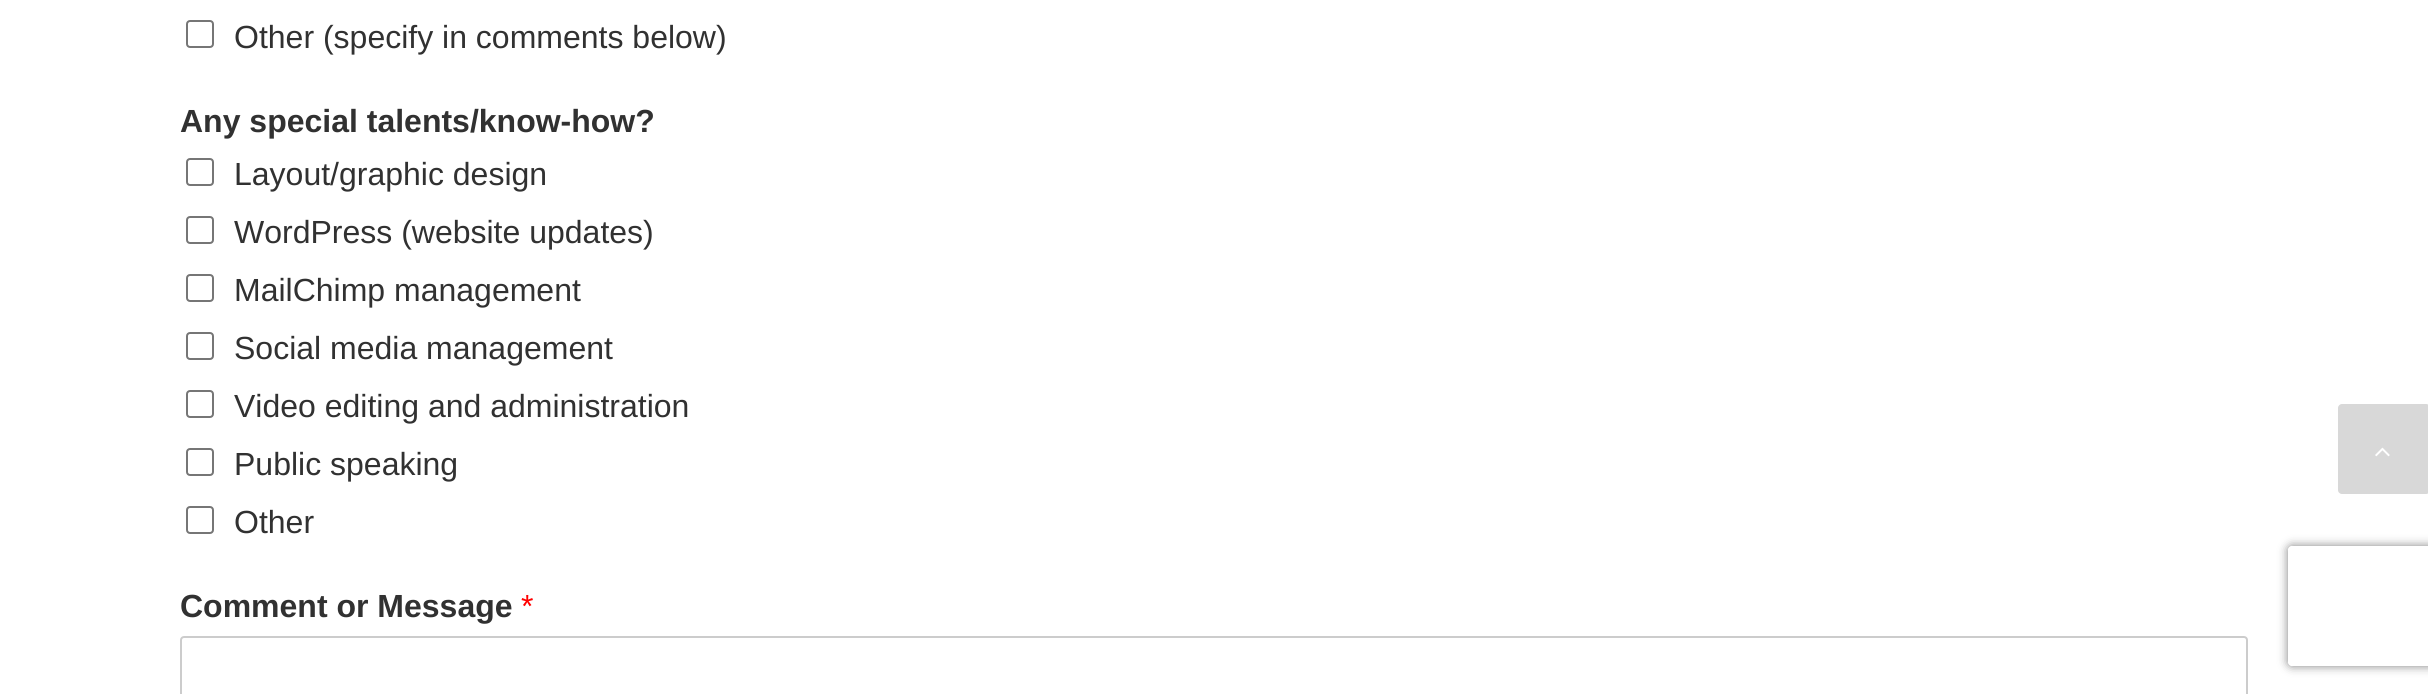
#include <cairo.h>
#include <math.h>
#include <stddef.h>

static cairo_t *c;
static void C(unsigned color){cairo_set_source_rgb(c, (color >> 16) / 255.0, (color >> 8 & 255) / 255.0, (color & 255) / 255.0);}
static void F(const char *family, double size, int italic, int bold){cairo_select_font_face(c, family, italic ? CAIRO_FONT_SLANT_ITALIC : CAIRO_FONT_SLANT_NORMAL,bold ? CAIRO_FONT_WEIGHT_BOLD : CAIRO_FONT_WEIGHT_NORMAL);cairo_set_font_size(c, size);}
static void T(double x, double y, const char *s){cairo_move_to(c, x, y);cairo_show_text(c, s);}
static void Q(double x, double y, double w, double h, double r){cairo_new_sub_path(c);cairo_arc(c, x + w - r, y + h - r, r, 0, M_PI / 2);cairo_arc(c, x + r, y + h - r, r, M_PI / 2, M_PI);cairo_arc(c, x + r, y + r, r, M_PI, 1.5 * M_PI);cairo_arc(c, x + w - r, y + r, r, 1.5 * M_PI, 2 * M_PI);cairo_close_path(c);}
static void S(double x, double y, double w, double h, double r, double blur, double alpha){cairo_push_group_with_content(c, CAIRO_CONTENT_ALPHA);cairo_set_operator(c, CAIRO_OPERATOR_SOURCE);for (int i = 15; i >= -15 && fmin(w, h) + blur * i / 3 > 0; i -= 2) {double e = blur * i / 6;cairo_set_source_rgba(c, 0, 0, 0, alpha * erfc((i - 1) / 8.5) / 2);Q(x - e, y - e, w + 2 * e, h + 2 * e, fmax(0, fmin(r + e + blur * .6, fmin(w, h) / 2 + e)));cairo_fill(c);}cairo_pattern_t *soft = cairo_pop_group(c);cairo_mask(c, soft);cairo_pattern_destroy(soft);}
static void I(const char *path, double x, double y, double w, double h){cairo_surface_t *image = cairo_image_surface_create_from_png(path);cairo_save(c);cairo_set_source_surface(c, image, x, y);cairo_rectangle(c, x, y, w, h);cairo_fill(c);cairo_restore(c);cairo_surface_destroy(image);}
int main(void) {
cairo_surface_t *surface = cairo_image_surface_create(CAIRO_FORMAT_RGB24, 2428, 694);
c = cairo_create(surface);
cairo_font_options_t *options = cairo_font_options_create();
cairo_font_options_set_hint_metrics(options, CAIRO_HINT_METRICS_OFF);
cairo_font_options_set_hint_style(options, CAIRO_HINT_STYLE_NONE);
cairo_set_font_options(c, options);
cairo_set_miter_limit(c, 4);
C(0xffffff);
cairo_paint(c);
Q(187,21,26,26,3);
C(0x767676);
cairo_stroke(c);
F("Liberation Sans",32,0,0);
C(0x313131);
T(234,48,"Other (specify in comments below)");
F("Liberation Sans",32,0,1);
T(180,132,"Any special talents/know-how?");
Q(187,159,26,26,3);
C(0x767676);
cairo_stroke(c);
F("Liberation Sans",32,0,0);
C(0x313131);
T(234,185,"Layout/graphic design");
Q(187,217,26,26,3);
C(0x767676);
cairo_stroke(c);
C(0x313131);
T(234,243,"WordPress (website updates)");
Q(187,275,26,26,3);
C(0x767676);
cairo_stroke(c);
C(0x313131);
T(234,301,"MailChimp management");
Q(187,333,26,26,3);
C(0x767676);
cairo_stroke(c);
C(0x313131);
T(234,359,"Social media management");
Q(187,391,26,26,3);
C(0x767676);
cairo_stroke(c);
C(0x313131);
T(234,417,"Video editing and administration");
Q(187,449,26,26,3);
C(0x767676);
cairo_stroke(c);
C(0x313131);
T(234,475,"Public speaking");
Q(187,507,26,26,3);
C(0x767676);
cairo_stroke(c);
C(0x313131);
T(234,533,"Other");
F("Liberation Sans",32,0,1);
T(180,617,"Comment or Message");
F("Liberation Sans",32,0,0);
C(0xff0000);
T(521,617,"*");
Q(181,637,2066,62,3);
C(0xcccccc);
cairo_stroke(c);
cairo_save(c);
cairo_set_fill_rule(c,CAIRO_FILL_RULE_EVEN_ODD);
cairo_new_path(c);
cairo_move_to(c,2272,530);
cairo_line_to(c,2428,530);
cairo_line_to(c,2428,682);
cairo_line_to(c,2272,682);
cairo_close_path(c);
cairo_move_to(c,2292,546);
cairo_line_to(c,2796,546);
cairo_curve_to(c,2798,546,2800,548,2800,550);
cairo_line_to(c,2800,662);
cairo_curve_to(c,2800,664,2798,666,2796,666);
cairo_line_to(c,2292,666);
cairo_curve_to(c,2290,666,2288,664,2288,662);
cairo_line_to(c,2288,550);
cairo_curve_to(c,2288,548,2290,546,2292,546);
cairo_close_path(c);
cairo_clip(c);
C(0x808080);
S(2288,546,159,120,4,5,1);
cairo_restore(c);
C(0xd8d8d8);
Q(2338,404,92,90,4);
cairo_fill(c);
I("1.png",2375,447,15,10);
cairo_surface_write_to_png(surface, "o.png");
cairo_font_options_destroy(options);
cairo_destroy(c);
cairo_surface_destroy(surface);
return 0;
}
